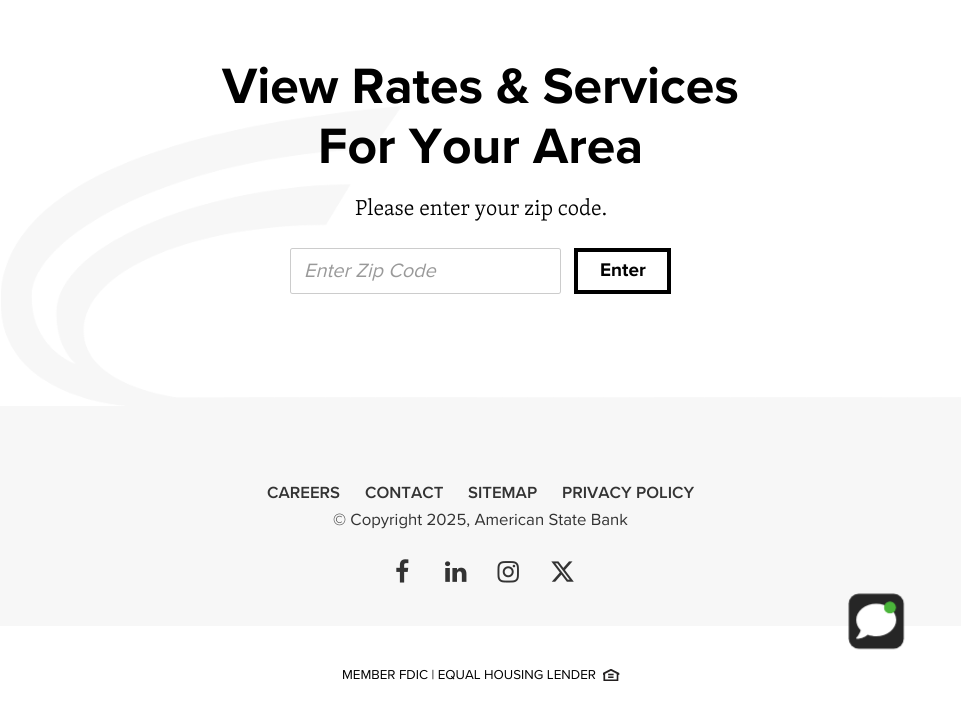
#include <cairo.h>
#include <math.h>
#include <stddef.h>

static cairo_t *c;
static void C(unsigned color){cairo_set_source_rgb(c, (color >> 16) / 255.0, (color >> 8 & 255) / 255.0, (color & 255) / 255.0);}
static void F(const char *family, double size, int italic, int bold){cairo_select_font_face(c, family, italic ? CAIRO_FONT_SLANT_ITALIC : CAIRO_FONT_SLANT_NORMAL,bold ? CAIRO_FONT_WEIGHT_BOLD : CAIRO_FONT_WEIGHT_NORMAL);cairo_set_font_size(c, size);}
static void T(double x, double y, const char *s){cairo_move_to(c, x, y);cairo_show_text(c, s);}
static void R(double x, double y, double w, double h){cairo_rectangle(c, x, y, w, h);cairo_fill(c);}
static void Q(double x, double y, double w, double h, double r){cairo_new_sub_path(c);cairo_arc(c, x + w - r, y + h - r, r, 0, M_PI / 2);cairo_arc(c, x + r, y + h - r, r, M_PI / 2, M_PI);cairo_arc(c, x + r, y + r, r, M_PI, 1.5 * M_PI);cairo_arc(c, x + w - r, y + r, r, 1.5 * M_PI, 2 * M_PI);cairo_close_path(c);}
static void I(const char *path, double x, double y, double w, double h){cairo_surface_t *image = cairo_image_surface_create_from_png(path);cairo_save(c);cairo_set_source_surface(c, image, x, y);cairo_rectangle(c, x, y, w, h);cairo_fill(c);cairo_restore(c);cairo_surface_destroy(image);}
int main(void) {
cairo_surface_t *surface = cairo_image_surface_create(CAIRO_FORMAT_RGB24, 961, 706);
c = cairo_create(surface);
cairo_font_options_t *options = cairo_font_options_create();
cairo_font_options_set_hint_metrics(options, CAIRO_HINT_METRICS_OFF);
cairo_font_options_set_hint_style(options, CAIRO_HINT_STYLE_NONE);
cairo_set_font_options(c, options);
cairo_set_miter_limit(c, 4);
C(0xffffff);
cairo_paint(c);
F("Proxima Nova",51.5,0,1);
C(0x000000);
T(222,103,"View Rates & Services");
I("1.png",1,106,960,300);
T(318,163,"For Your Area");
F("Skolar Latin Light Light",22.25,0,0);
T(355,215,"Please enter your zip code.");
Q(290.5,248.5,270,45,2);
C(0xcccccc);
cairo_set_line_width(c,1);
cairo_stroke(c);
F("Proxima Nova",20,1,0);
C(0x999999);
T(304,277,"Enter Zip Code");
cairo_rectangle(c,576,250,93,42);
C(0x000000);
cairo_set_line_width(c,4);
cairo_stroke(c);
F("Proxima Nova",19,0,1);
T(600,276,"Enter");
C(0xf7f7f7);
R(0,406,961,220);
F("Proxima Nova SemiBold",16.75,0,0);
C(0x333333);
T(267,498,"CAREERS");
T(365,498,"CONTACT");
T(468,498,"SITEMAP");
T(562,498,"PRIVACY POLICY");
F("Proxima Nova",16.75,0,0);
T(333,525,"© Copyright 2025, American State Bank");
I("2.png",396,559,13,24);
I("3.png",445,561,22,21);
I("4.png",497,561,22,22);
I("5.png",551,561,23,21);
F("Proxima Nova",13.4,0,0);
C(0x000000);
T(342,679,"MEMBER FDIC | EQUAL HOUSING LENDER");
I("6.png",603,669,17,12);
I("7.png",848,593,57,57);
cairo_surface_write_to_png(surface, "o.png");
cairo_font_options_destroy(options);
cairo_destroy(c);
cairo_surface_destroy(surface);
return 0;
}
